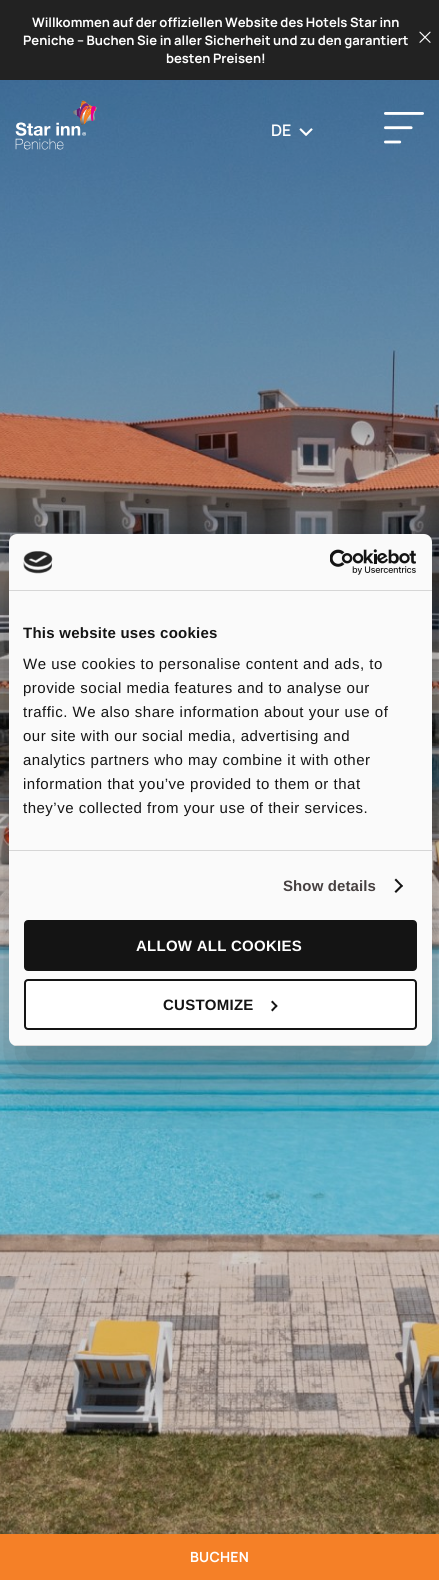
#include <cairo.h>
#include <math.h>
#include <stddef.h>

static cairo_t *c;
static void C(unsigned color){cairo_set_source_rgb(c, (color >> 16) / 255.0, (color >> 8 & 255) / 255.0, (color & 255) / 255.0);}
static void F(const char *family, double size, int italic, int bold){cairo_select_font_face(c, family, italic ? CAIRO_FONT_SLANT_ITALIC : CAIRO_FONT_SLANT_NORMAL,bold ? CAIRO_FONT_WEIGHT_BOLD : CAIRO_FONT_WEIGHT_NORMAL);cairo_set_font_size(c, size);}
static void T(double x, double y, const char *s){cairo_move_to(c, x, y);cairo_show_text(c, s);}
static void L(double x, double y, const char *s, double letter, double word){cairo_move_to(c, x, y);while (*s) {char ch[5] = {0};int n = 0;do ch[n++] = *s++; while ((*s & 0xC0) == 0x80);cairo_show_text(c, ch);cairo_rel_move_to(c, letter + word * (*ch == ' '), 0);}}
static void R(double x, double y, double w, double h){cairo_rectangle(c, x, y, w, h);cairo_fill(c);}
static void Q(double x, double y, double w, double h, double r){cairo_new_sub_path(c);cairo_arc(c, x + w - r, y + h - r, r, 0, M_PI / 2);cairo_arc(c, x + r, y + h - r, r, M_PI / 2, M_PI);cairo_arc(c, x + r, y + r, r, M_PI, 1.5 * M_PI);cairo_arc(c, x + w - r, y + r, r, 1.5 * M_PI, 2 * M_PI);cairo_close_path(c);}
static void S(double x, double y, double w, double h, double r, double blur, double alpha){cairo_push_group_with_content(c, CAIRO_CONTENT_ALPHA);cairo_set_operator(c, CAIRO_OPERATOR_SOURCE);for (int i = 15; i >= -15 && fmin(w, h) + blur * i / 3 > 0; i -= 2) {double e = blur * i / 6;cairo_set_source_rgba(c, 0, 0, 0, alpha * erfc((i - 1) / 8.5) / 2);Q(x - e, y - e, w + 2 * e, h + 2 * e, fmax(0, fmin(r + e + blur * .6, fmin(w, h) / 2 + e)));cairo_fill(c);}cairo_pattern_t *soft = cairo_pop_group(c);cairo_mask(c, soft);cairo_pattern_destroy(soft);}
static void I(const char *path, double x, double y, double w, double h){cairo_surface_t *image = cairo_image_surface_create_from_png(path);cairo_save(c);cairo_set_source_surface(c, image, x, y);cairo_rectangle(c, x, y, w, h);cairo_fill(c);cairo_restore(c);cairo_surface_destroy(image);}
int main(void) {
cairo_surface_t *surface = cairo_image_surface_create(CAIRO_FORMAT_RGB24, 439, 1580);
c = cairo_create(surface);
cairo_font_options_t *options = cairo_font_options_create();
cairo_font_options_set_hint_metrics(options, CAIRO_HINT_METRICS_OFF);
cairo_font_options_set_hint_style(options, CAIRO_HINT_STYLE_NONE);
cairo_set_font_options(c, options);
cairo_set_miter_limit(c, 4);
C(0xffffff);
cairo_paint(c);
C(0x222222);
R(0,0,439,80);
F("Manrope",13,0,1);
C(0xffffff);
T(32,27,"Willkommen auf der offiziellen Website des Hotels Star inn");
T(23,45,"Peniche – Buchen Sie in aller Sicherheit und zu den garantiert");
T(166,63,"besten Preisen!");
I("1.png",419,31,12,12);
I("5.png",0,80,439,1454);
I("2.png",15,100,82,50);
F("Manrope SemiBold",16,0,0);
T(271,136,"DE");
I("3.png",299,128,14,8);
I("4.png",384,112,40,32);
C(0x000000);
S(9,566,423,512,8,34,.3);
C(0xfafafa);
Q(9,534,423,512,8);
cairo_fill(c);
C(0xd6d6d6);
R(9,590,423,1);
I("6.png",23,551,30,23);
I("7.png",330,549,86,26);
R(9,850,423,1);
F("Liberation Sans",15,0,1);
C(0x141414);
L(23,638,"This website uses cookies",.25,0);
F("Liberation Sans",15,0,0);
L(23,669,"We use cookies to personalise content and ads, to",.5,0);
L(23,693,"provide social media features and to analyse our",.5,0);
L(23,717,"traffic. We also share information about your use of",.5,0);
L(23,741,"our site with our social media, advertising and",.5,0);
L(23,765,"analytics partners who may combine it with other",.5,0);
L(23,789,"information that you’ve provided to them or that",.5,0);
L(23,813,"they’ve collected from your use of their services.",.5,0);
F("Liberation Sans",15,0,1);
C(0x464040);
L(283,891,"Show details",.1,0);
C(0x141414);
cairo_new_path(c);
cairo_move_to(c,396,878.5);
cairo_line_to(c,403,886);
cairo_line_to(c,401.5,887);
cairo_line_to(c,394.5,880);
cairo_close_path(c);
cairo_fill(c);
cairo_new_path(c);
cairo_move_to(c,401.5,884.5);
cairo_line_to(c,403,886);
cairo_line_to(c,396,893);
cairo_line_to(c,394.5,891.5);
cairo_close_path(c);
cairo_fill(c);
cairo_save(c);
Q(9,534,423,512,8);
cairo_clip(c);
C(0xd6d6d6);
R(9,1045,423,1);
cairo_restore(c);
Q(25,921,391,49,3);
cairo_fill_preserve(c);
cairo_stroke(c);
C(0xffffff);
L(136,951,"ALLOW ALL COOKIES",.25,0);
Q(25,980,391,49,3);
cairo_fill_preserve(c);
C(0x141414);
cairo_stroke(c);
L(163,1010,"CUSTOMIZE",.25,0);
cairo_new_path(c);
cairo_move_to(c,272.5,1000.5);
cairo_line_to(c,277.5,1006);
cairo_line_to(c,276.5,1007.5);
cairo_line_to(c,271,1002);
cairo_close_path(c);
cairo_fill(c);
cairo_new_path(c);
cairo_move_to(c,276.5,1004.5);
cairo_line_to(c,277.5,1006);
cairo_line_to(c,272.5,1011.5);
cairo_line_to(c,271,1010);
cairo_close_path(c);
cairo_fill(c);
C(0xf58027);
R(0,1534,439,46);
F("Manrope",14,0,1);
C(0xffffff);
L(190,1562,"BUCHEN",.25,0);
cairo_surface_write_to_png(surface, "o.png");
cairo_font_options_destroy(options);
cairo_destroy(c);
cairo_surface_destroy(surface);
return 0;
}
